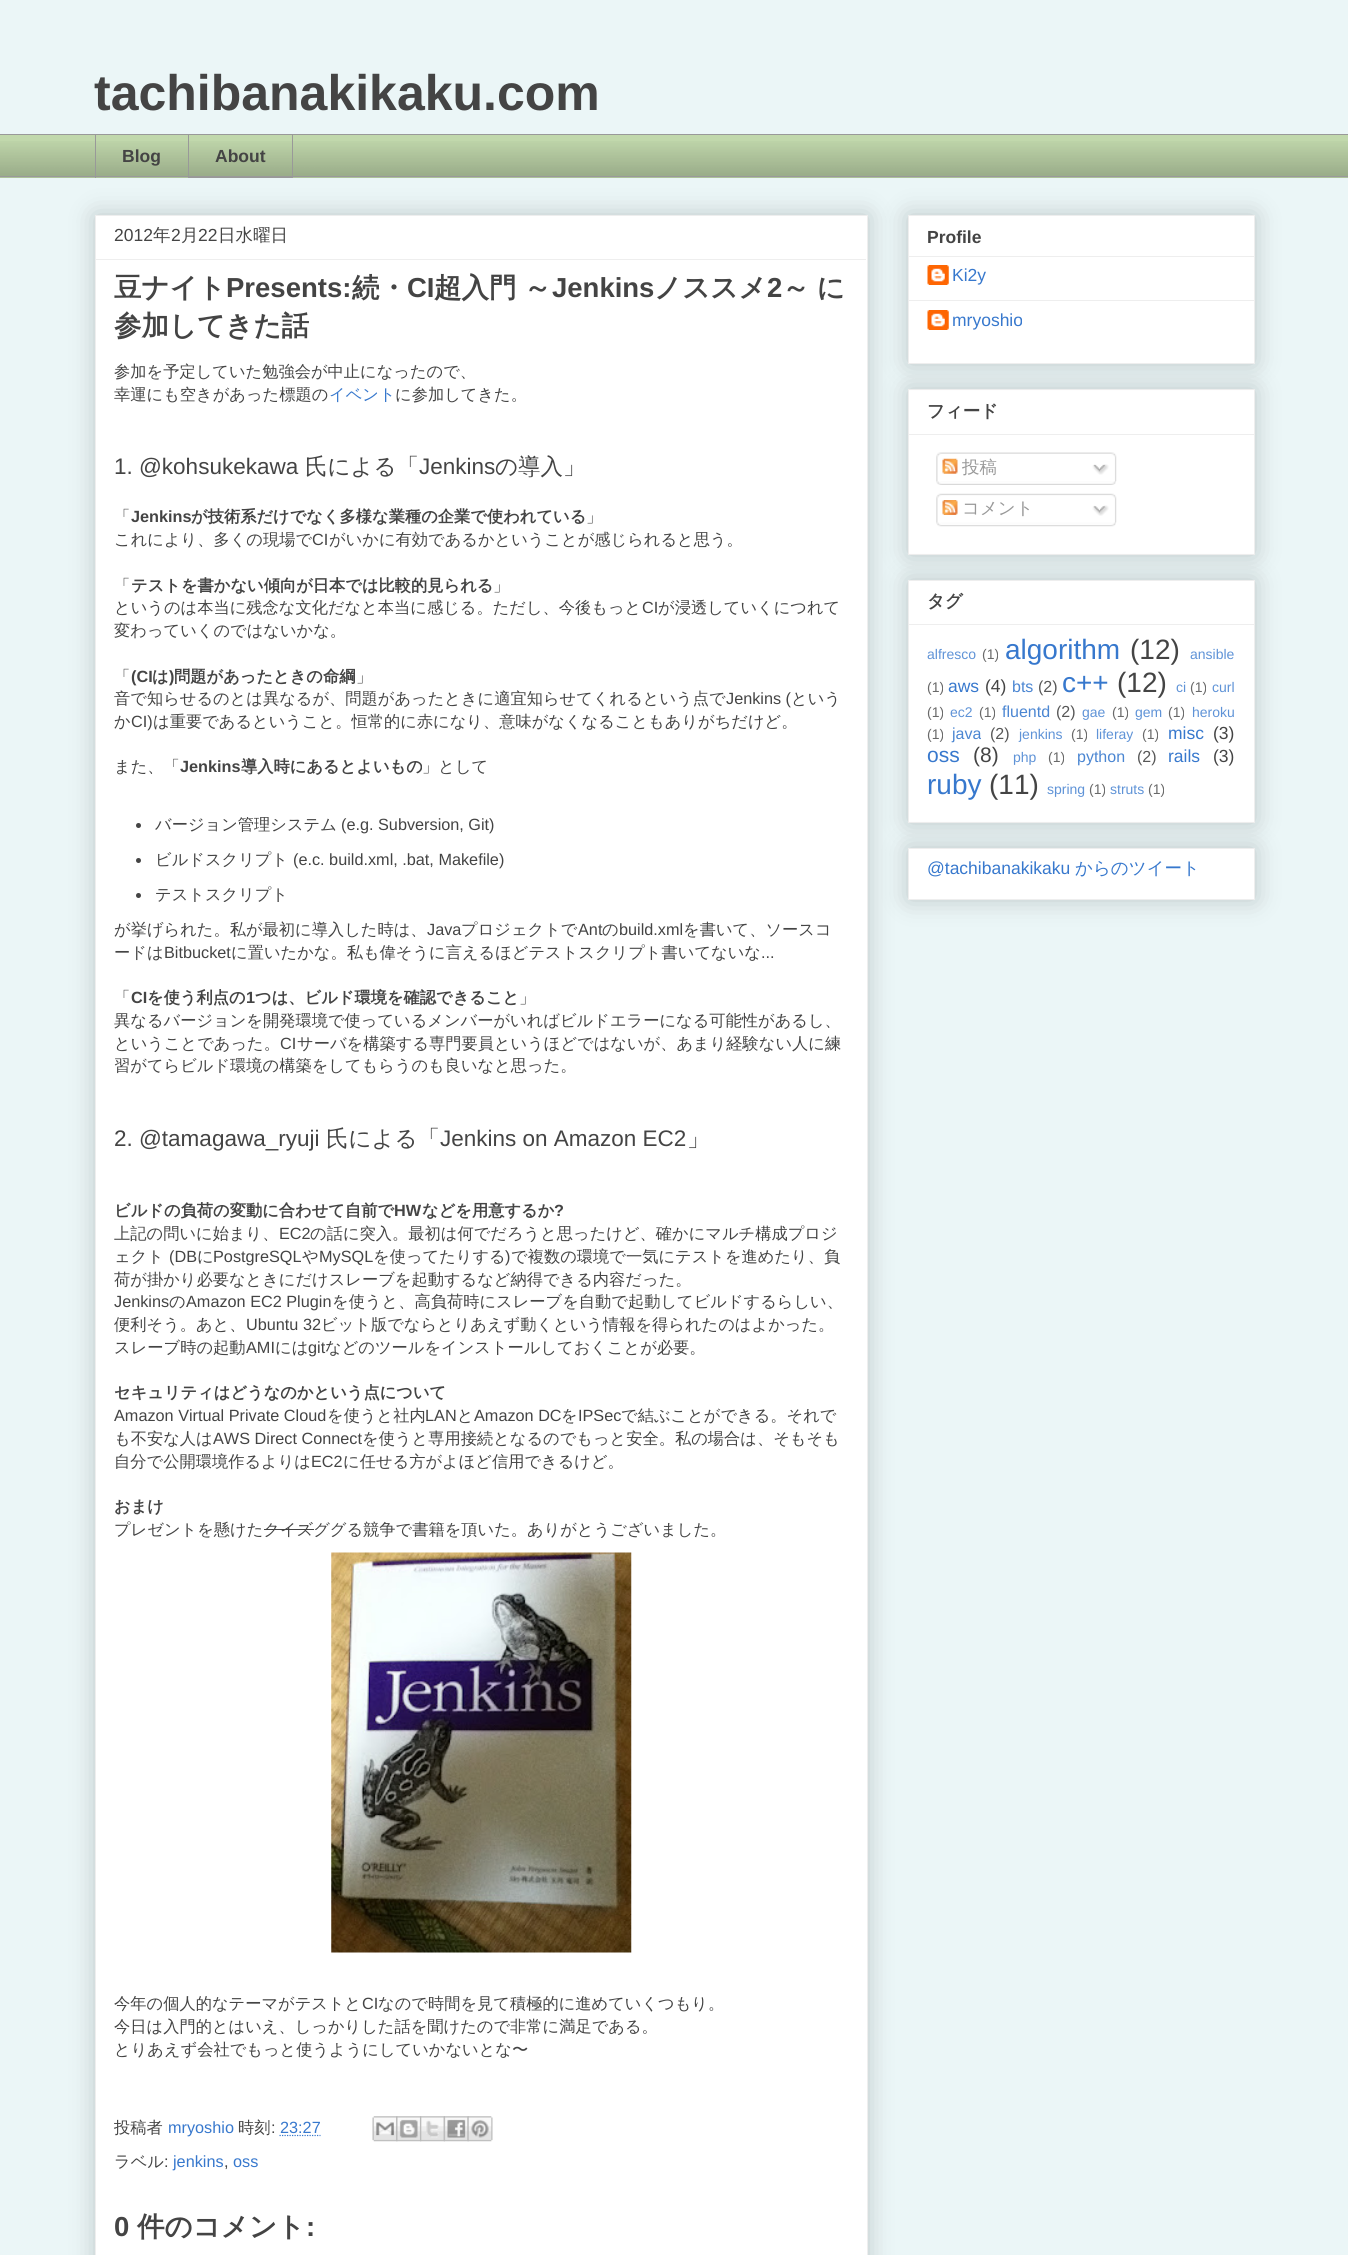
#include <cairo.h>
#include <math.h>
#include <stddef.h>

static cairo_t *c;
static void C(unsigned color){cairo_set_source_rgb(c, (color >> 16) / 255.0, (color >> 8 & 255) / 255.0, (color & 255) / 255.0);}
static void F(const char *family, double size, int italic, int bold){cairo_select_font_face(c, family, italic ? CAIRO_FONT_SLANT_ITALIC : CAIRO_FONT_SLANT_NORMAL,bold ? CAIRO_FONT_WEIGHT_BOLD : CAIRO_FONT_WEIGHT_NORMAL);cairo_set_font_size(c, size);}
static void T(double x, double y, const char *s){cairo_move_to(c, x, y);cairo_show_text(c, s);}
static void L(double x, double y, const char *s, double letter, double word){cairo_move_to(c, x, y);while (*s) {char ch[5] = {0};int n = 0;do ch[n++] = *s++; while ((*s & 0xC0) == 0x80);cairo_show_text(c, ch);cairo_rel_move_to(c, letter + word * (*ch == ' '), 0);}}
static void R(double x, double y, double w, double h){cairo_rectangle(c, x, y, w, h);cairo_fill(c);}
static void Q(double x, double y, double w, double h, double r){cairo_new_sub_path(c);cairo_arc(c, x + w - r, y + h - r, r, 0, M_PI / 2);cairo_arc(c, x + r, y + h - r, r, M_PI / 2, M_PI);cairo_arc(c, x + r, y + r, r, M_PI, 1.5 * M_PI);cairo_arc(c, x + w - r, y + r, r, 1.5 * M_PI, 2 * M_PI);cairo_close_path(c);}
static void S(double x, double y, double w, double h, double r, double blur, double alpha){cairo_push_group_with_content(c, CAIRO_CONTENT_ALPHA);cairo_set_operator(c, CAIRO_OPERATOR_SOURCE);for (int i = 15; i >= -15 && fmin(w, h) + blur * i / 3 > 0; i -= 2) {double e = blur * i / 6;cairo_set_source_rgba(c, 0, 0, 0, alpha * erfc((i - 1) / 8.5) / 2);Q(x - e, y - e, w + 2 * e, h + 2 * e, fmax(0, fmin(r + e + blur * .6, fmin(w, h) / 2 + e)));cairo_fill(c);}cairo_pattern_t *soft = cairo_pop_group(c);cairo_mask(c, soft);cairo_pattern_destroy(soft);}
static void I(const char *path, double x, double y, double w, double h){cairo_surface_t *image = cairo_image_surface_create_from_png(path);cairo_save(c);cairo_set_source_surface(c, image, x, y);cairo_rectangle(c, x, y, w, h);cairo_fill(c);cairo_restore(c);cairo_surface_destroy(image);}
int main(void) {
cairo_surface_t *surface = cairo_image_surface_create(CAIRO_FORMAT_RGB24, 1348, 2255);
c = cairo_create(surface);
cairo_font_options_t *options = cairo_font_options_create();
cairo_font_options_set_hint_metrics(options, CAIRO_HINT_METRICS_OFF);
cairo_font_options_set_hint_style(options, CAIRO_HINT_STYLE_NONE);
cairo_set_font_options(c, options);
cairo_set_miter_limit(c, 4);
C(0xebf6f7);
cairo_paint(c);
F("Liberation Sans",50,0,1);
C(0x444444);
T(94,110,"tachibanakikaku.com");
C(0xc1d8ac);
R(0,135,1348,43);
I("1.png",0,141,1348,37);
C(0x999999);
R(0,134,1348,1);
R(95,134,1,44);
F("Liberation Sans",17.5,0,1);
C(0x444444);
T(122,162,"Blog");
cairo_rectangle(c,188.5,134.5,104,43);
C(0x999999);
cairo_set_line_width(c,1);
cairo_stroke(c);
C(0x444444);
T(215,162,"About");
C(0x999999);
R(0,176,1348,1);
C(0x000000);
S(95,215,773,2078,0,12.5,.2);
C(0xffffff);
cairo_rectangle(c,95.5,215.5,772,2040);
cairo_fill_preserve(c);
C(0xeeeeee);
cairo_stroke(c);
F("Liberation Sans",17.5,0,0);
C(0x444444);
T(114,241,"2012");
F("WenQuanYi Zen Hei Medium",17.5,0,0);
T(153,241,"年");
F("Liberation Sans",17.5,0,0);
T(171,241,"2");
F("WenQuanYi Zen Hei Medium",17.5,0,0);
T(181,241,"月");
F("Liberation Sans",17.5,0,0);
T(198,241,"22");
F("WenQuanYi Zen Hei Medium",17.5,0,0);
T(218,241,"日水曜日");
C(0xeeeeee);
R(96,259,770,1);
F("WenQuanYi Zen Hei",27.5,0,1);
C(0x444444);
T(114,297,"豆ナイト");
F("Liberation Sans",27.5,0,1);
T(226,297,"Presents:");
F("WenQuanYi Zen Hei",27.5,0,1);
T(352,297,"続・");
F("Liberation Sans",27.5,0,1);
T(407,297,"CI");
F("WenQuanYi Zen Hei",27.5,0,1);
L(434,297,"超入門 ～",0,-1);
F("Liberation Sans",27.5,0,1);
T(552,297,"Jenkins");
F("WenQuanYi Zen Hei",27.5,0,1);
T(654,297,"ノススメ");
F("Liberation Sans",27.5,0,1);
T(767,297,"2");
F("WenQuanYi Zen Hei",27.5,0,1);
L(782,297,"～ に",0,-1);
T(114,335,"参加してきた話");
F("WenQuanYi Zen Hei Medium",16.25,0,0);
T(114,377,"参加を予定していた勉強会が中止になったので、");
T(114,400,"幸運にも空きがあった標題の");
C(0x3778cd);
T(329,400,"イベント");
C(0x444444);
T(395,400,"に参加してきた。");
F("Liberation Sans",22.5,0,0);
T(114,474,"1. @kohsukekawa");
F("WenQuanYi Zen Hei Medium",22.5,0,0);
T(305,474,"氏による「");
F("Liberation Sans",22.5,0,0);
T(419,474,"Jenkins");
F("WenQuanYi Zen Hei Medium",22.5,0,0);
T(495,474,"の導入」");
F("WenQuanYi Zen Hei Medium",16.25,0,0);
T(114,522,"「");
F("Liberation Sans",16.25,0,1);
T(131,522,"Jenkins");
F("WenQuanYi Zen Hei",16.25,0,1);
T(191,522,"が技術系だけでなく多様な業種の企業で使われている");
F("WenQuanYi Zen Hei Medium",16.25,0,0);
T(586,522,"」");
T(114,545,"これにより、多くの現場で");
F("Liberation Sans",16.25,0,0);
T(312,545,"CI");
F("WenQuanYi Zen Hei Medium",16.25,0,0);
T(329,545,"がいかに有効であるかということが感じられると思う。");
T(114,591,"「");
F("WenQuanYi Zen Hei",16.25,0,1);
T(131,591,"テストを書かない傾向が日本では比較的見られる");
F("WenQuanYi Zen Hei Medium",16.25,0,0);
T(493,591,"」");
T(114,613,"というのは本当に残念な文化だなと本当に感じる。ただし、今後もっと");
F("Liberation Sans",16.25,0,0);
T(642,613,"CI");
F("WenQuanYi Zen Hei Medium",16.25,0,0);
T(658,613,"が浸透していくにつれて");
T(114,636,"変わっていくのではないかな。");
T(114,682,"「");
F("Liberation Sans",16.25,0,1);
T(131,682,"(CI");
F("WenQuanYi Zen Hei",16.25,0,1);
T(152,682,"は");
F("Liberation Sans",16.25,0,1);
T(169,682,")");
F("WenQuanYi Zen Hei",16.25,0,1);
T(174,682,"問題があったときの命綱");
F("WenQuanYi Zen Hei Medium",16.25,0,0);
T(356,682,"」");
T(114,704,"音で知らせるのとは異なるが、問題があったときに適宜知らせてくれるという点で");
F("Liberation Sans",16.25,0,0);
T(726,704,"Jenkins (");
F("WenQuanYi Zen Hei Medium",16.25,0,0);
T(791,704,"という");
T(114,727,"か");
F("Liberation Sans",16.25,0,0);
T(131,727,"CI)");
F("WenQuanYi Zen Hei Medium",16.25,0,0);
T(153,727,"は重要であるということ。恒常的に赤になり、意味がなくなることもありがちだけど。");
T(114,772,"また、「");
F("Liberation Sans",16.25,0,1);
T(180,772,"Jenkins");
F("WenQuanYi Zen Hei",16.25,0,1);
T(241,772,"導入時にあるとよいもの");
F("WenQuanYi Zen Hei Medium",16.25,0,0);
T(422,772,"」として");
cairo_new_path(c);
cairo_arc(c,138.5,825.5,2.5,0,2 * M_PI);
cairo_fill(c);
T(155,830,"バージョン管理システム");
F("Liberation Sans",16.25,0,0);
T(341,830,"(e.g. Subversion, Git)");
cairo_new_path(c);
cairo_arc(c,138.5,860.5,2.5,0,2 * M_PI);
cairo_fill(c);
F("WenQuanYi Zen Hei Medium",16.25,0,0);
T(155,865,"ビルドスクリプト");
F("Liberation Sans",16.25,0,0);
T(293,865,"(e.c. build.xml, .bat, Makefile)");
cairo_new_path(c);
cairo_arc(c,138.5,895.5,2.5,0,2 * M_PI);
cairo_fill(c);
F("WenQuanYi Zen Hei Medium",16.25,0,0);
T(155,900,"テストスクリプト");
T(114,935,"が挙げられた。私が最初に導入した時は、");
F("Liberation Sans",16.25,0,0);
T(427,935,"Java");
F("WenQuanYi Zen Hei Medium",16.25,0,0);
T(461,935,"プロジェクトで");
F("Liberation Sans",16.25,0,0);
T(578,935,"Ant");
F("WenQuanYi Zen Hei Medium",16.25,0,0);
T(602,935,"の");
F("Liberation Sans",16.25,0,0);
T(619,935,"build.xml");
F("WenQuanYi Zen Hei Medium",16.25,0,0);
T(683,935,"を書いて、ソースコ");
T(114,958,"ードは");
F("Liberation Sans",16.25,0,0);
T(164,958,"Bitbucket");
F("WenQuanYi Zen Hei Medium",16.25,0,0);
T(231,958,"に置いたかな。私も偉そうに言えるほどテストスクリプト書いてないな");
F("Liberation Sans",16.25,0,0);
T(761,958,"...");
F("WenQuanYi Zen Hei Medium",16.25,0,0);
T(114,1003,"「");
F("Liberation Sans",16.25,0,1);
T(131,1003,"CI");
F("WenQuanYi Zen Hei",16.25,0,1);
T(147,1003,"を使う利点の");
F("Liberation Sans",16.25,0,1);
T(246,1003,"1");
F("WenQuanYi Zen Hei",16.25,0,1);
T(255,1003,"つは、ビルド環境を確認できること");
F("WenQuanYi Zen Hei Medium",16.25,0,0);
T(519,1003,"」");
T(114,1026,"異なるバージョンを開発環境で使っているメンバーがいればビルドエラーになる可能性があるし、");
T(114,1049,"ということであった。");
F("Liberation Sans",16.25,0,0);
T(280,1049,"CI");
F("WenQuanYi Zen Hei Medium",16.25,0,0);
T(297,1049,"サーバを構築する専門要員というほどではないが、あまり経験ない人に練");
T(114,1071,"習がてらビルド環境の構築をしてもらうのも良いなと思った。");
F("Liberation Sans",22.5,0,0);
T(114,1146,"2. @tamagawa_ryuji");
F("WenQuanYi Zen Hei Medium",22.5,0,0);
T(326,1146,"氏による「");
F("Liberation Sans",22.5,0,0);
T(440,1146,"Jenkins on Amazon EC2");
F("WenQuanYi Zen Hei Medium",22.5,0,0);
T(687,1146,"」");
F("WenQuanYi Zen Hei",16.25,0,1);
T(114,1216,"ビルドの負荷の変動に合わせて自前で");
F("Liberation Sans",16.25,0,1);
T(394,1216,"HW");
F("WenQuanYi Zen Hei",16.25,0,1);
T(422,1216,"などを用意するか");
F("Liberation Sans",16.25,0,1);
T(554,1216,"?");
F("WenQuanYi Zen Hei Medium",16.25,0,0);
T(114,1239,"上記の問いに始まり、");
F("Liberation Sans",16.25,0,0);
T(279,1239,"EC2");
F("WenQuanYi Zen Hei Medium",16.25,0,0);
T(310,1239,"の話に突入。最初は何でだろうと思ったけど、確かにマルチ構成プロジ");
T(114,1262,"ェクト");
F("Liberation Sans",16.25,0,0);
T(169,1262,"(DB");
F("WenQuanYi Zen Hei Medium",16.25,0,0);
T(197,1262,"に");
F("Liberation Sans",16.25,0,0);
T(213,1262,"PostgreSQL");
F("WenQuanYi Zen Hei Medium",16.25,0,0);
T(302,1262,"や");
F("Liberation Sans",16.25,0,0);
T(319,1262,"MySQL");
F("WenQuanYi Zen Hei Medium",16.25,0,0);
T(373,1262,"を使ってたりする");
F("Liberation Sans",16.25,0,0);
T(505,1262,")");
F("WenQuanYi Zen Hei Medium",16.25,0,0);
T(511,1262,"で複数の環境で一気にテストを進めたり、負");
T(114,1285,"荷が掛かり必要なときにだけスレーブを起動するなど納得できる内容だった。");
F("Liberation Sans",16.25,0,0);
T(114,1307,"Jenkins");
F("WenQuanYi Zen Hei Medium",16.25,0,0);
T(169,1307,"の");
F("Liberation Sans",16.25,0,0);
T(186,1307,"Amazon EC2 Plugin");
F("WenQuanYi Zen Hei Medium",16.25,0,0);
T(332,1307,"を使うと、高負荷時にスレーブを自動で起動してビルドするらしい、");
T(114,1330,"便利そう。あと、");
F("Liberation Sans",16.25,0,0);
T(246,1330,"Ubuntu 32");
F("WenQuanYi Zen Hei Medium",16.25,0,0);
T(321,1330,"ビット版でならとりあえず動くという情報を得られたのはよかった。");
T(114,1353,"スレーブ時の起動");
F("Liberation Sans",16.25,0,0);
T(246,1353,"AMI");
F("WenQuanYi Zen Hei Medium",16.25,0,0);
T(275,1353,"には");
F("Liberation Sans",16.25,0,0);
T(308,1353,"git");
F("WenQuanYi Zen Hei Medium",16.25,0,0);
T(325,1353,"などのツールをインストールしておくことが必要。");
F("WenQuanYi Zen Hei",16.25,0,1);
T(114,1398,"セキュリティはどうなのかという点について");
F("Liberation Sans",16.25,0,0);
T(114,1421,"Amazon Virtual Private Cloud");
F("WenQuanYi Zen Hei Medium",16.25,0,0);
T(327,1421,"を使うと社内");
F("Liberation Sans",16.25,0,0);
T(425,1421,"LAN");
F("WenQuanYi Zen Hei Medium",16.25,0,0);
T(457,1421,"と");
F("Liberation Sans",16.25,0,0);
T(474,1421,"Amazon DC");
F("WenQuanYi Zen Hei Medium",16.25,0,0);
T(561,1421,"を");
F("Liberation Sans",16.25,0,0);
T(578,1421,"IPSec");
F("WenQuanYi Zen Hei Medium",16.25,0,0);
T(621,1421,"で結ぶことができる。それで");
T(114,1444,"も不安な人は");
F("Liberation Sans",16.25,0,0);
T(213,1444,"AWS Direct Connect");
F("WenQuanYi Zen Hei Medium",16.25,0,0);
T(362,1444,"を使うと専用接続となるのでもっと安全。私の場合は、そもそも");
T(114,1467,"自分で公開環境作るよりは");
F("Liberation Sans",16.25,0,0);
T(311,1467,"EC2");
F("WenQuanYi Zen Hei Medium",16.25,0,0);
T(343,1467,"に任せる方がよほど信用できるけど。");
F("WenQuanYi Zen Hei",16.25,0,1);
T(114,1512,"おまけ");
F("WenQuanYi Zen Hei Medium",16.25,0,0);
T(114,1535,"プレゼントを懸けたクイズググる競争で書籍を頂いた。ありがとうございました。");
R(264,1529,50,1);
I("2.png",331,1552,301,401);
T(114,2009,"今年の個人的なテーマがテストと");
F("Liberation Sans",16.25,0,0);
T(362,2009,"CI");
F("WenQuanYi Zen Hei Medium",16.25,0,0);
T(378,2009,"なので時間を見て積極的に進めていくつもり。");
T(114,2032,"今日は入門的とはいえ、しっかりした話を聞けたので非常に満足である。");
T(114,2055,"とりあえず会社でもっと使うようにしていかないとな〜");
T(114,2133,"投稿者");
F("Liberation Sans",16.25,0,0);
C(0x3778cd);
T(168,2133,"mryoshio");
F("WenQuanYi Zen Hei Medium",16.25,0,0);
C(0x444444);
T(238,2133,"時刻");
F("Liberation Sans",16.25,0,0);
T(271,2133,":");
C(0x3778cd);
T(280,2133,"23:27");
cairo_new_path(c);
cairo_move_to(c,279.5,2135.5);
cairo_line_to(c,320.5,2135.5);
cairo_set_line_width(c,1.2);
cairo_set_dash(c,(double[]){1.25,1.25},2,0);
cairo_stroke(c);
I("3.png",372,2116,26,26);
I("4.png",396,2116,26,26);
I("5.png",420,2116,25,26);
I("6.png",443,2116,26,26);
I("7.png",467,2116,26,26);
F("WenQuanYi Zen Hei Medium",16.25,0,0);
C(0x444444);
T(114,2167,"ラベル");
F("Liberation Sans",16.25,0,0);
T(164,2167,":");
C(0x3778cd);
T(173,2167,"jenkins");
C(0x444444);
T(224,2167,",");
C(0x3778cd);
T(233,2167,"oss");
F("Liberation Sans",27.5,0,1);
C(0x444444);
T(114,2236,"0");
F("WenQuanYi Zen Hei",27.5,0,1);
T(137,2236,"件のコメント");
F("Liberation Sans",27.5,0,1);
T(306,2236,":");
C(0x000000);
S(908,389,347,166,0,12.5,.2);
C(0xffffff);
cairo_rectangle(c,908.5,389.5,346,165);
cairo_fill_preserve(c);
C(0xeeeeee);
cairo_set_line_width(c,1);
cairo_set_dash(c,NULL,0,0);
cairo_stroke(c);
C(0x000000);
S(908,215,347,149,0,12.5,.2);
C(0xffffff);
cairo_rectangle(c,908.5,215.5,346,148);
cairo_fill_preserve(c);
C(0xeeeeee);
cairo_stroke(c);
F("Liberation Sans",17.5,0,1);
C(0x444444);
T(927,243,"Profile");
C(0xeeeeee);
R(909,256,345,1);
I("8.png",927,265,22,20);
F("Liberation Sans",17.5,0,0);
C(0x3778cd);
T(952,281,"Ki2y");
C(0xeeeeee);
R(909,300,345,1);
I("8.png",927,310,22,20);
C(0x3778cd);
T(952,326,"mryoshio");
F("WenQuanYi Zen Hei",17.5,0,1);
C(0x444444);
T(927,417,"フィード");
C(0xeeeeee);
R(909,434,345,1);
I("9.png",936,452,181,30);
I("10.png",942,458,16,16);
F("WenQuanYi Zen Hei Medium",17.5,0,0);
C(0x999999);
T(962,473,"投稿");
I("11.png",1092,464,17,11);
I("12.png",936,481,180,4);
I("13.png",936,493,181,30);
I("14.png",942,500,16,15);
T(962,514,"コメント");
I("15.png",1092,505,17,11);
I("16.png",936,522,180,5);
C(0x000000);
S(908,580,347,243,0,12.5,.2);
C(0xffffff);
cairo_rectangle(c,908.5,580.5,346,242);
cairo_fill_preserve(c);
C(0xeeeeee);
cairo_stroke(c);
F("WenQuanYi Zen Hei",17.5,0,1);
C(0x444444);
T(927,607,"タグ");
C(0xeeeeee);
R(909,624,345,1);
F("Liberation Sans",14,0,0);
C(0x5f93d7);
T(927,659,"alfresco");
C(0x696969);
T(982,659,"(1)");
F("Liberation Sans",28,0,0);
C(0x3778cd);
T(1005,659,"algorithm");
C(0x444444);
T(1130,659,"(12)");
F("Liberation Sans",14,0,0);
C(0x5f93d7);
T(1190,659,"ansible");
C(0x696969);
T(927,692,"(1)");
F("Liberation Sans",17.5,0,0);
C(0x3778cd);
T(948,692,"aws");
C(0x444444);
T(985,692,"(4)");
F("Liberation Sans",16,0,0);
C(0x4b86d2);
T(1012,692,"bts");
C(0x575757);
T(1038,692,"(2)");
F("Liberation Sans",28,0,0);
C(0x3778cd);
T(1062,692,"c++");
C(0x444444);
T(1117,692,"(12)");
F("Liberation Sans",14,0,0);
C(0x5f93d7);
T(1176,692,"ci");
C(0x696969);
T(1190,692,"(1)");
C(0x5f93d7);
T(1212,692,"curl");
C(0x696969);
T(927,717,"(1)");
C(0x5f93d7);
T(950,717,"ec2");
C(0x696969);
T(979,717,"(1)");
F("Liberation Sans",16,0,0);
C(0x4b86d2);
T(1002,717,"fluentd");
C(0x575757);
T(1056,717,"(2)");
F("Liberation Sans",14,0,0);
C(0x5f93d7);
T(1082,717,"gae");
C(0x696969);
T(1112,717,"(1)");
C(0x5f93d7);
T(1135,717,"gem");
C(0x696969);
T(1168,717,"(1)");
C(0x5f93d7);
T(1192,717,"heroku");
C(0x696969);
T(927,739,"(1)");
F("Liberation Sans",16,0,0);
C(0x4b86d2);
T(952,739,"java");
C(0x575757);
T(990,739,"(2)");
F("Liberation Sans",14,0,0);
C(0x5f93d7);
T(1019,739,"jenkins");
C(0x696969);
T(1071,739,"(1)");
C(0x5f93d7);
T(1096,739,"liferay");
C(0x696969);
T(1142,739,"(1)");
F("Liberation Sans",17.5,0,0);
C(0x3778cd);
T(1168,739,"misc");
C(0x444444);
T(1213,739,"(3)");
F("Liberation Sans",21,0,0);
C(0x3778cd);
T(927,762,"oss");
C(0x444444);
T(973,762,"(8)");
F("Liberation Sans",14,0,0);
C(0x5f93d7);
T(1013,762,"php");
C(0x696969);
T(1048,762,"(1)");
F("Liberation Sans",16,0,0);
C(0x4b86d2);
T(1077,762,"python");
C(0x575757);
T(1137,762,"(2)");
F("Liberation Sans",17.5,0,0);
C(0x3778cd);
T(1168,762,"rails");
C(0x444444);
T(1213,762,"(3)");
F("Liberation Sans",28,0,0);
C(0x3778cd);
T(927,794,"ruby");
C(0x444444);
T(989,794,"(11)");
F("Liberation Sans",14,0,0);
C(0x5f93d7);
T(1047,794,"spring");
C(0x696969);
T(1089,794,"(1)");
C(0x5f93d7);
T(1110,794,"struts");
C(0x696969);
T(1148,794,"(1)");
C(0x000000);
S(908,848,347,52,0,12.5,.2);
C(0xffffff);
cairo_rectangle(c,908.5,848.5,346,51);
cairo_fill_preserve(c);
C(0xeeeeee);
cairo_stroke(c);
F("Liberation Sans",17.5,0,0);
C(0x3778cd);
T(927,874,"@tachibanakikaku");
F("WenQuanYi Zen Hei Medium",17.5,0,0);
T(1075,874,"からのツイート");
cairo_surface_write_to_png(surface, "o.png");
cairo_font_options_destroy(options);
cairo_destroy(c);
cairo_surface_destroy(surface);
return 0;
}
